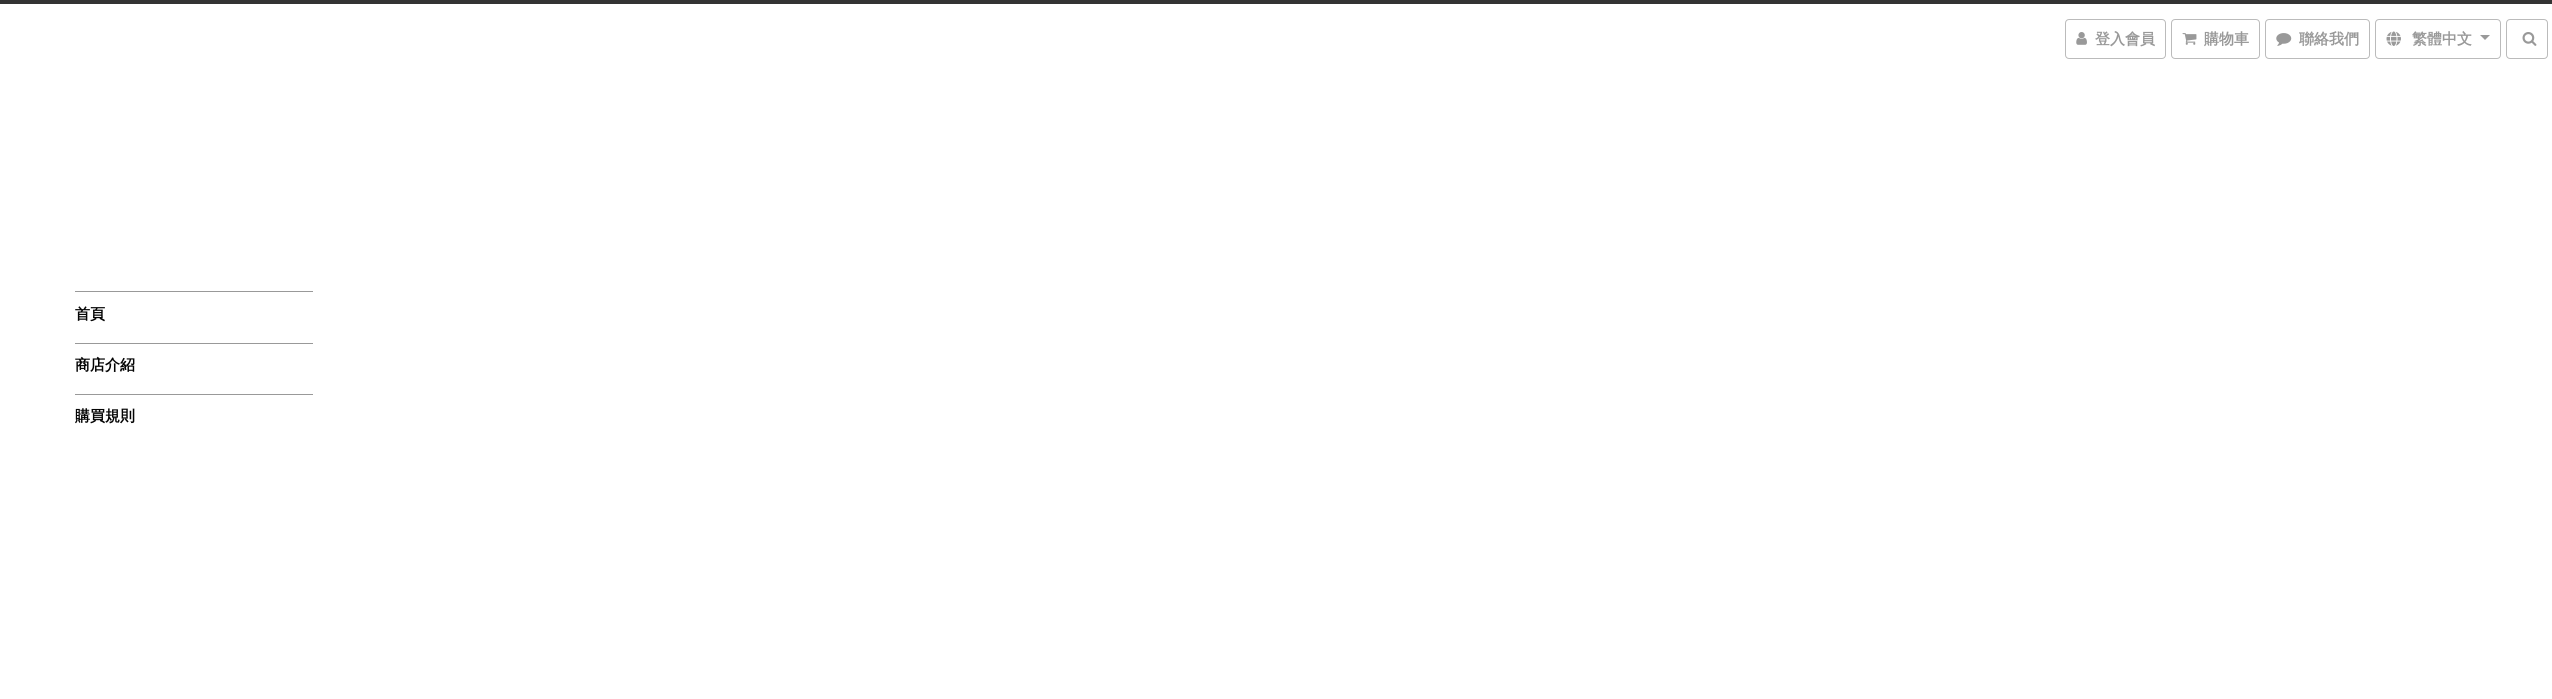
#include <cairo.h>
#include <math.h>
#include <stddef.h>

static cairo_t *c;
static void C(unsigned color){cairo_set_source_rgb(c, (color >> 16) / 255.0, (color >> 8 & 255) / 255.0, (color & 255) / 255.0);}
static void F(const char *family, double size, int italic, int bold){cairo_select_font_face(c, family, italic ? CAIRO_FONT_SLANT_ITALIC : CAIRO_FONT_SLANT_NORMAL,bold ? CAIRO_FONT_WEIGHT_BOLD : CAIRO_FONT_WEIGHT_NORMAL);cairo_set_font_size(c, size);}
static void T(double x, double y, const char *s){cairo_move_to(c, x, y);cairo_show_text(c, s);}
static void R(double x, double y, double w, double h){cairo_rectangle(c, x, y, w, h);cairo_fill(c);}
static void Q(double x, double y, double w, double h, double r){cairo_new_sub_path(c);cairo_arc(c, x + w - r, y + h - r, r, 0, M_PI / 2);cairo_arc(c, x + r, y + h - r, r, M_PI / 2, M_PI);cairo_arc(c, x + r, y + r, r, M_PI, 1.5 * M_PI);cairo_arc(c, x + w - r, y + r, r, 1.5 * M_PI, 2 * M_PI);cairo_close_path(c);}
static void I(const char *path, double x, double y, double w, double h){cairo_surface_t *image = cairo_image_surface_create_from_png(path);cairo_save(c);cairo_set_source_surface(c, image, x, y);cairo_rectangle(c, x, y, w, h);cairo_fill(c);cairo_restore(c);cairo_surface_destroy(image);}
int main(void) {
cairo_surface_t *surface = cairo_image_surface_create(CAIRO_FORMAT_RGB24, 2552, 699);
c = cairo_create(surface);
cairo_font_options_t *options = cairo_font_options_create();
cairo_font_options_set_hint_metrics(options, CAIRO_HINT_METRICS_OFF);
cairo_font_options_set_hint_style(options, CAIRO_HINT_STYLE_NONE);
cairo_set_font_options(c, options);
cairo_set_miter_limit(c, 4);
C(0xffffff);
cairo_paint(c);
C(0x333333);
R(0,0,2552,4);
Q(2065.5,19.5,100,39,3.5);
C(0xbbbbbb);
cairo_set_line_width(c,1);
cairo_stroke(c);
I("1.png",2076,32,11,13);
F("WenQuanYi Zen Hei",15,0,1);
C(0x999999);
T(2095,44,"登入會員");
Q(2171.5,19.5,88,39,3.5);
C(0xbbbbbb);
cairo_stroke(c);
I("2.png",2182,33,15,12);
C(0x999999);
T(2204,44,"購物車");
Q(2265.5,19.5,104,39,3.5);
C(0xbbbbbb);
cairo_stroke(c);
I("3.png",2276,33,16,13);
C(0x999999);
T(2299,44,"聯絡我們");
Q(2375.5,19.5,125,39,3.5);
C(0xbbbbbb);
cairo_stroke(c);
I("4.png",2386,31,15,15);
C(0x999999);
T(2412,44,"繁體中文");
cairo_new_path(c);
cairo_move_to(c,2480,35);
cairo_line_to(c,2490,35);
cairo_line_to(c,2485,40);
cairo_close_path(c);
cairo_fill(c);
Q(2506.5,19.5,41,39,3.5);
C(0xbbbbbb);
cairo_stroke(c);
I("5.png",2522,32,15,14);
C(0x999999);
R(75,291,238,1);
C(0x040404);
T(75,319,"首頁");
C(0x999999);
R(75,343,238,1);
C(0x040404);
T(75,370,"商店介紹");
C(0x999999);
R(75,394,238,1);
C(0x040404);
T(75,421,"購買規則");
cairo_surface_write_to_png(surface, "o.png");
cairo_font_options_destroy(options);
cairo_destroy(c);
cairo_surface_destroy(surface);
return 0;
}
